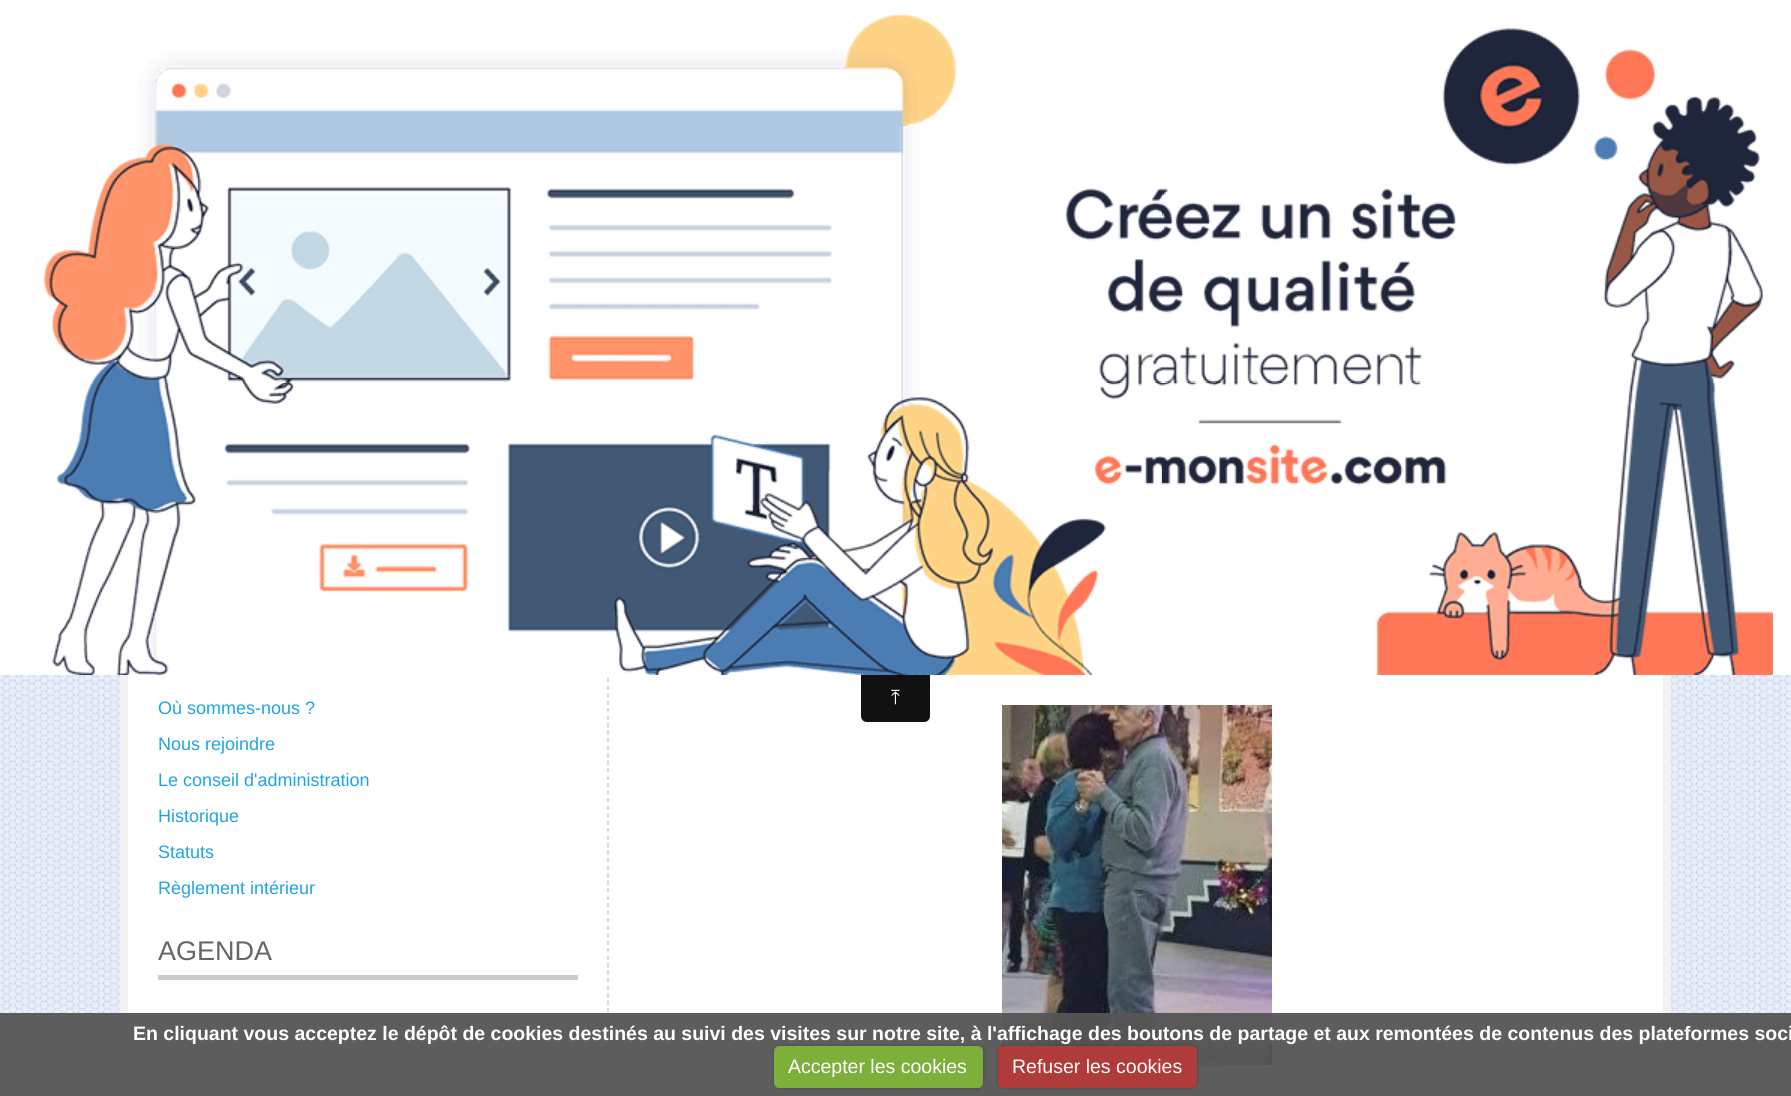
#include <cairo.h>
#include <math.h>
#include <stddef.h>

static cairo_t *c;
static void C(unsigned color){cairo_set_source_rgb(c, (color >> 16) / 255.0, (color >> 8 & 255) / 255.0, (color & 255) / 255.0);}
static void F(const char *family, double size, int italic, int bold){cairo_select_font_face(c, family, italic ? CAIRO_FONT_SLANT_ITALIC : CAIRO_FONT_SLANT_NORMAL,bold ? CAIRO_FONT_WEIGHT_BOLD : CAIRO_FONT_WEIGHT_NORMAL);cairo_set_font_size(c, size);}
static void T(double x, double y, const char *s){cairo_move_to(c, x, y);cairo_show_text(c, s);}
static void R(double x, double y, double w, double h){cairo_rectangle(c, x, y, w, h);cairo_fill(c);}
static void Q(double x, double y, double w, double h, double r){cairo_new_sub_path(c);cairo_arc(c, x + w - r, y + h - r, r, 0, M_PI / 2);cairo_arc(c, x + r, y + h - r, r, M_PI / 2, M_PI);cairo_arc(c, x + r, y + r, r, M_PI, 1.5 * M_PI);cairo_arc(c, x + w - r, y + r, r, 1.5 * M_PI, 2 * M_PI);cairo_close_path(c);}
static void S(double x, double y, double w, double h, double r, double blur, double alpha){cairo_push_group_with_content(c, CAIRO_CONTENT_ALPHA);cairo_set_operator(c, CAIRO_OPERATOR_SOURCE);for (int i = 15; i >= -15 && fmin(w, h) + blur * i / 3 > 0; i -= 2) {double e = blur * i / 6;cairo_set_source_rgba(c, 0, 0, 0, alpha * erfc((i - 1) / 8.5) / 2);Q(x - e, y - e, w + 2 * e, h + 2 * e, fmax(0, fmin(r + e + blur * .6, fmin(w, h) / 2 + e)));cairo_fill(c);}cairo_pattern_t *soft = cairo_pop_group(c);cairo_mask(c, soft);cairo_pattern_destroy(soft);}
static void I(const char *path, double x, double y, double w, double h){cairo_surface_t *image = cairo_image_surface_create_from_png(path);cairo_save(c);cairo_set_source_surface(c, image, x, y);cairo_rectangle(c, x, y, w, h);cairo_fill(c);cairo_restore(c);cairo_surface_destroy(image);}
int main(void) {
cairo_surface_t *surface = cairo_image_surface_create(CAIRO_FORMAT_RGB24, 1791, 1096);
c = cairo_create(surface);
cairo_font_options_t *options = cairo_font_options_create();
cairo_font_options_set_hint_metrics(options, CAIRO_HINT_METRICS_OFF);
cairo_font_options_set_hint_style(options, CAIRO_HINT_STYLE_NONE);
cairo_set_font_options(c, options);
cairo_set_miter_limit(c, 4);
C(0xffffff);
cairo_paint(c);
I("1.png",0,675,1791,421);
C(0xffffff);
R(128,675,1535,421);
cairo_rectangle(c,124,34,1543,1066);
C(0xf2f2f2);
cairo_set_line_width(c,8);
cairo_stroke(c);
cairo_new_path(c);
cairo_move_to(c,608,580.5);
cairo_line_to(c,608,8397);
C(0xcccccc);
cairo_set_line_width(c,1.5);
cairo_set_dash(c,(double[]){4.5,3},2,0);
cairo_stroke(c);
C(0xffffff);
R(120,30,1551,645);
I("2.png",43,14,1730,661);
C(0x111111);
cairo_new_path(c);
cairo_move_to(c,861,675);
cairo_line_to(c,930,675);
cairo_line_to(c,930,716);
cairo_curve_to(c,930,719.5,927.5,722,924,722);
cairo_line_to(c,867,722);
cairo_curve_to(c,863.5,722,861,719.5,861,716);
cairo_close_path(c);
cairo_fill(c);
F("FreeSerif",20,0,0);
C(0xffffff);
T(891,704,"⤒");
F("Liberation Sans",18,0,0);
C(0x1fa4e1);
T(158,714,"Où sommes-nous ?");
T(158,750,"Nous rejoindre");
T(158,786,"Le conseil d'administration");
T(158,822,"Historique");
T(158,858,"Statuts");
T(158,894,"Règlement intérieur");
C(0xcccccc);
R(158,975,420,5);
F("Liberation Sans",27,0,0);
C(0x666666);
T(158,960,"AGENDA");
I("3.png",1002,705,270,360);
cairo_set_source_rgba(c,0.337,0.337,0.337,0.95);
R(0,1013,1791,83);
F("Liberation Sans",19.5,0,1);
C(0xffffff);
T(133,1040,"En cliquant vous acceptez le dépôt de cookies destinés au suivi des visites sur notre site, à l'affichage des boutons de partage et aux remontées de contenus des plateformes soci");
C(0x000000);
S(774,1046,209,42,5,1.5,.25);
C(0x7daf3b);
Q(774,1046,209,42,5);
cairo_fill(c);
F("Liberation Sans",19.5,0,0);
C(0xffffff);
T(788,1073,"Accepter les cookies");
C(0x000000);
S(998,1046,199,42,5,1.5,.25);
C(0xaf3b3b);
Q(998,1046,199,42,5);
cairo_fill(c);
C(0xffffff);
T(1012,1073,"Refuser les cookies");
cairo_surface_write_to_png(surface, "o.png");
cairo_font_options_destroy(options);
cairo_destroy(c);
cairo_surface_destroy(surface);
return 0;
}
